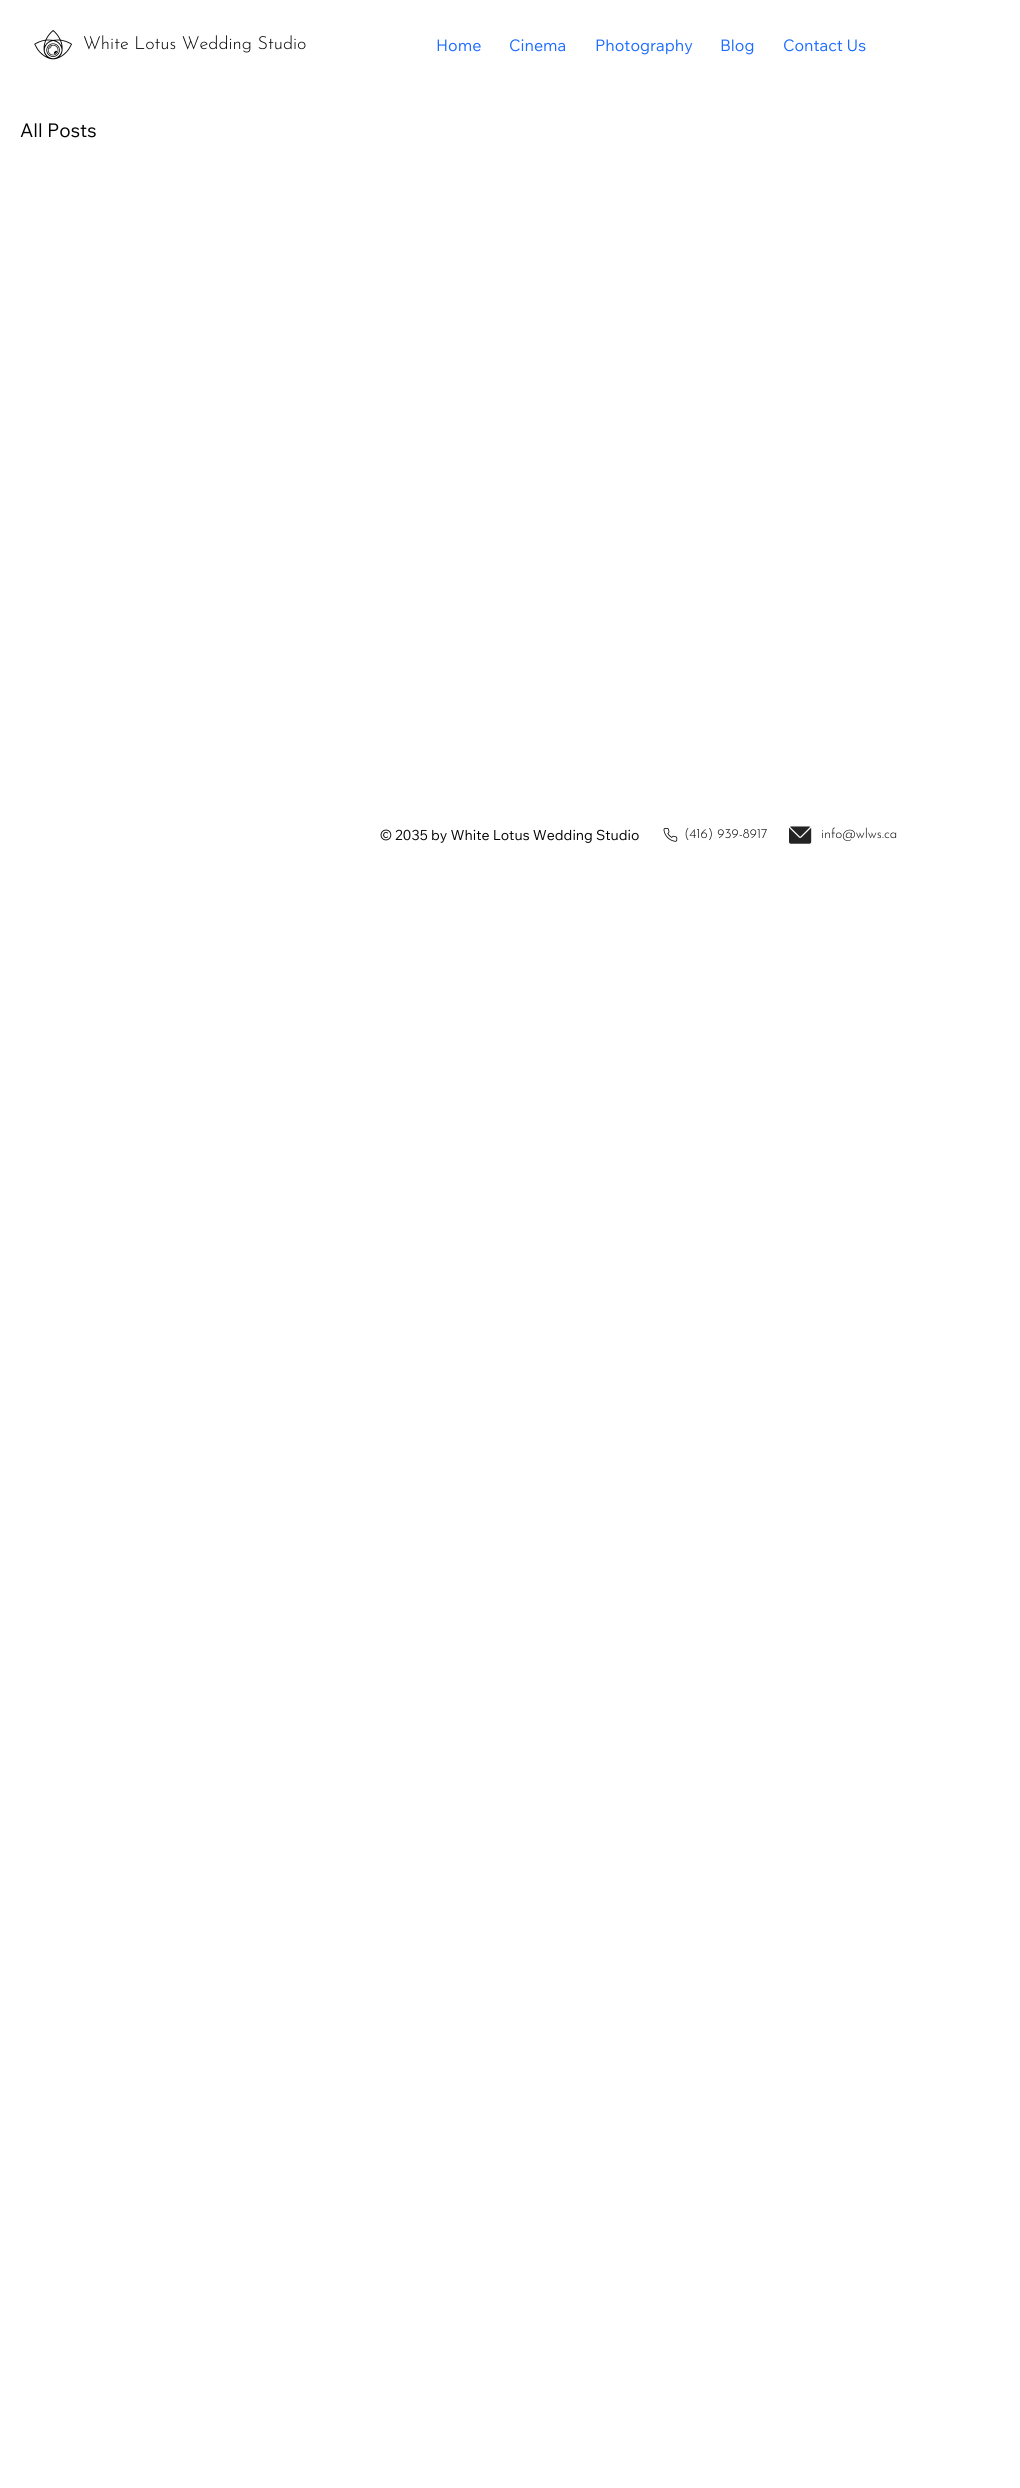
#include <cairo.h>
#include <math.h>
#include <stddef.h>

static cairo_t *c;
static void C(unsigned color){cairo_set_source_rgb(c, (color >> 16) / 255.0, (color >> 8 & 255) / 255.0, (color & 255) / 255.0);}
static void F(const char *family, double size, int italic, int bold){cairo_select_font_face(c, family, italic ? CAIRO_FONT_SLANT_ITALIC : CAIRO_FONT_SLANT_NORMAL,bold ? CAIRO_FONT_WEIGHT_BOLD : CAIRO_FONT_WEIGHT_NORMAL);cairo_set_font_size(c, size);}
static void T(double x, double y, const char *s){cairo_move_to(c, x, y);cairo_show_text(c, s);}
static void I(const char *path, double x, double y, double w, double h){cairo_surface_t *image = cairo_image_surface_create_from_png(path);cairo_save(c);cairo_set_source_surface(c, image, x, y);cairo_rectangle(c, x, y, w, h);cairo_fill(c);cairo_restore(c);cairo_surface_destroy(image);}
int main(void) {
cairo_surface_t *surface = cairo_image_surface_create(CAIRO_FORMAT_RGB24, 1020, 2488);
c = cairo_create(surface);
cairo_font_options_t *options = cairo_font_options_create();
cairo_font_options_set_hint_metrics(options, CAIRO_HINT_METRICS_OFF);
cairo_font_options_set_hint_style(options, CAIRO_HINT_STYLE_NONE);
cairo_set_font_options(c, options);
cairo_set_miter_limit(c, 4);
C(0xffffff);
cairo_paint(c);
I("1.png",34,30,38,30);
F("Josefin Sans Thin",18,0,0);
C(0x000000);
T(83,49,"White Lotus Wedding Studio");
F("Wix Madefor Text",16,0,0);
C(0x1a6aff);
T(436,51,"Home");
T(509,51,"Cinema");
T(595,51,"Photography");
T(720,51,"Blog");
T(783,51,"Contact Us");
F("Wix Madefor Text",19,0,0);
C(0x000000);
T(20,137,"All Posts");
F("Wix Madefor Text",14,0,0);
T(380,840,"© 2035 by White Lotus Wedding Studio");
I("2.png",663,828,15,14);
F("Josefin Sans Thin",13.5,0,0);
T(684,838,"(416) 939-8917");
I("3.png",789,826,23,18);
T(821,838,"info@wlws.ca");
cairo_surface_write_to_png(surface, "o.png");
cairo_font_options_destroy(options);
cairo_destroy(c);
cairo_surface_destroy(surface);
return 0;
}
